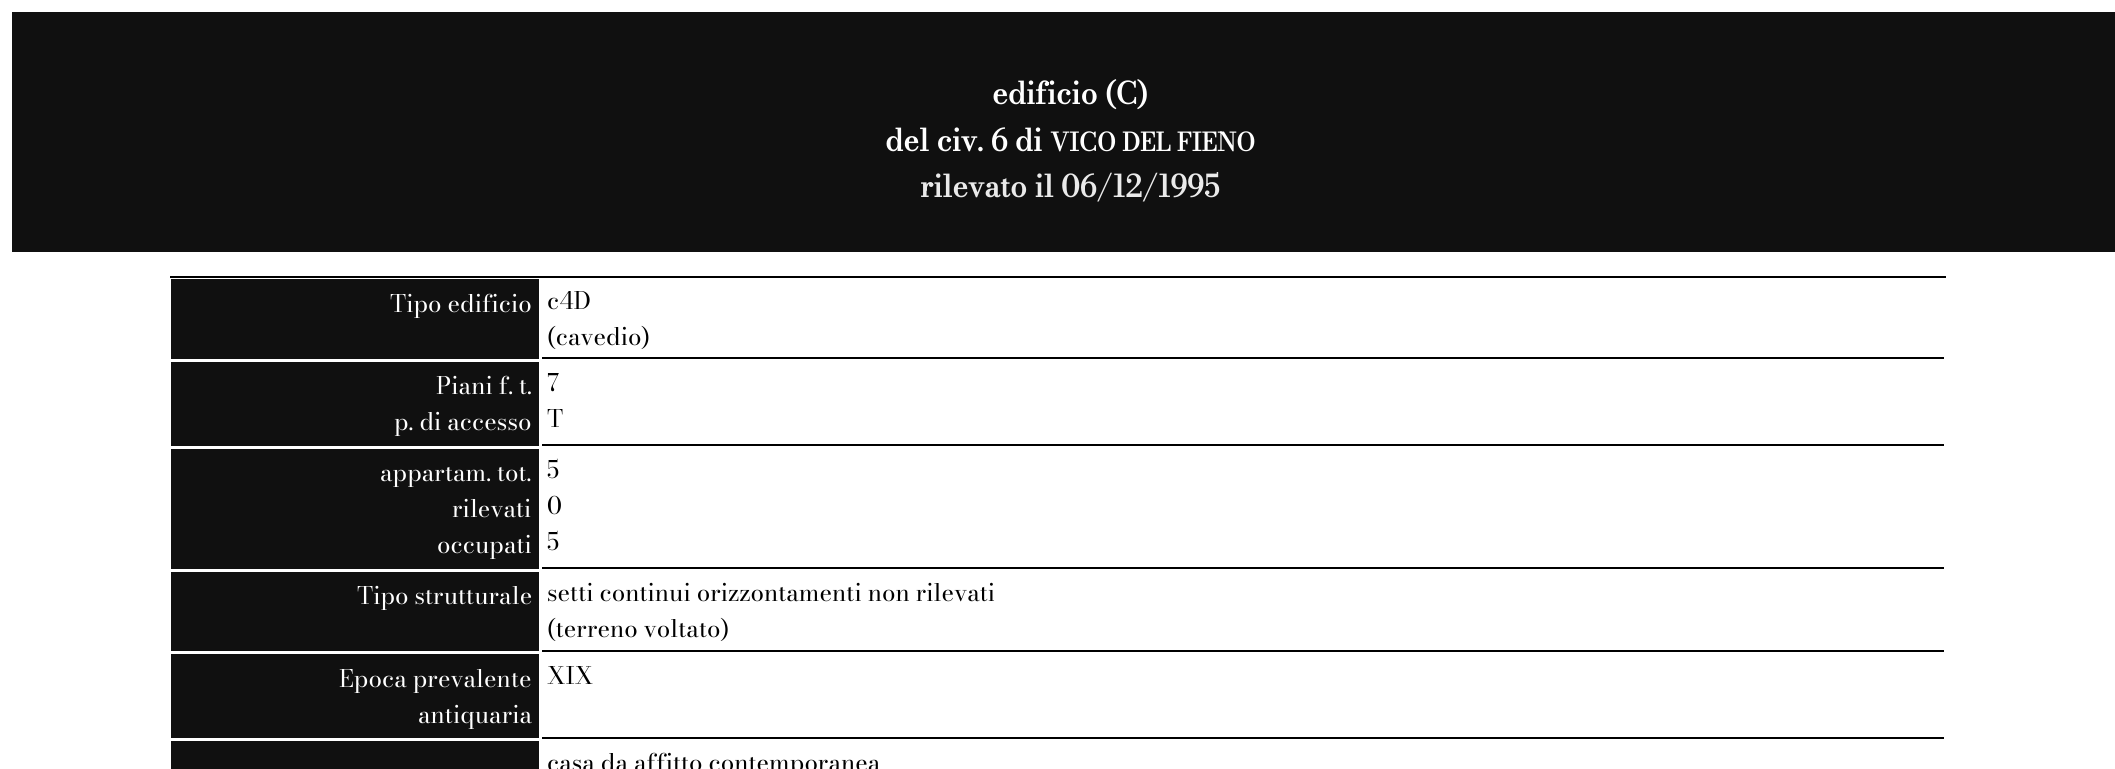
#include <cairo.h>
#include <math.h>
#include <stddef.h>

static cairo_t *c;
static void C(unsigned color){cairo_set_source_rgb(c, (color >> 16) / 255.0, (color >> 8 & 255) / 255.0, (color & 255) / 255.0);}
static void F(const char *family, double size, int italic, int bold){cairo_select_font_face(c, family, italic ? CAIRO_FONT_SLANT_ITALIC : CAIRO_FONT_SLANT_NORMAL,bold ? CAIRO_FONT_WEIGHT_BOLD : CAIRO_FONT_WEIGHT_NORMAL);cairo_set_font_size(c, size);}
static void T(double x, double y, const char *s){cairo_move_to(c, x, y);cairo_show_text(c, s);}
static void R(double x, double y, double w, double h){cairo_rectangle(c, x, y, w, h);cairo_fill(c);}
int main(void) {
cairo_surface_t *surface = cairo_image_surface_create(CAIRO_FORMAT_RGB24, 2115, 769);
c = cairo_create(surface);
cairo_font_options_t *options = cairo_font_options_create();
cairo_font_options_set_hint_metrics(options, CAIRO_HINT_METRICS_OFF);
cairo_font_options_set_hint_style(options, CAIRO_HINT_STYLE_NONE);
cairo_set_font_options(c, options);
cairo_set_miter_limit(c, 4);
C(0xffffff);
cairo_paint(c);
C(0x101010);
R(12,12,2103,240);
F("Bodoni Moda",30,0,1);
C(0xffffff);
T(992,104,"edificio (C)");
T(885,151,"del civ. 6 di");
F("Bodoni Moda",25,0,1);
T(1050,151,"VICO DEL FIENO");
F("Bodoni Moda",30,0,1);
C(0xeaeaea);
T(920,197,"rilevato il 06/12/1995");
C(0x000000);
R(170,276,1776,2);
C(0x101010);
R(171,279,368,80);
F("Bodoni Moda",24,0,0);
C(0xffffff);
T(390,312,"Tipo edificio");
C(0x000000);
R(542,357,1402,2);
T(547,309,"c4D");
T(547,345,"(cavedio)");
C(0x101010);
R(171,362,368,84);
C(0xffffff);
T(436,394,"Piani f. t.");
T(394,430,"p. di accesso");
C(0x000000);
R(542,444,1402,2);
T(547,391,"7");
T(547,427,"T");
C(0x101010);
R(171,449,368,120);
C(0xffffff);
T(380,481,"appartam. tot.");
T(452,517,"rilevati");
T(437,553,"occupati");
C(0x000000);
R(542,567,1402,2);
T(547,478,"5");
T(547,514,"0");
T(547,550,"5");
C(0x101010);
R(171,572,368,79);
C(0xffffff);
T(357,604,"Tipo strutturale");
C(0x000000);
R(542,650,1402,2);
T(547,601,"setti continui orizzontamenti non rilevati");
T(547,637,"(terreno voltato)");
C(0x101010);
R(171,654,368,84);
C(0xffffff);
T(339,687,"Epoca prevalente");
T(418,723,"antiquaria");
C(0x000000);
R(542,737,1402,2);
T(547,684,"XIX");
C(0x101010);
R(171,741,368,28);
C(0x000000);
T(547,771,"casa da affitto contemporanea");
cairo_surface_write_to_png(surface, "o.png");
cairo_font_options_destroy(options);
cairo_destroy(c);
cairo_surface_destroy(surface);
return 0;
}
